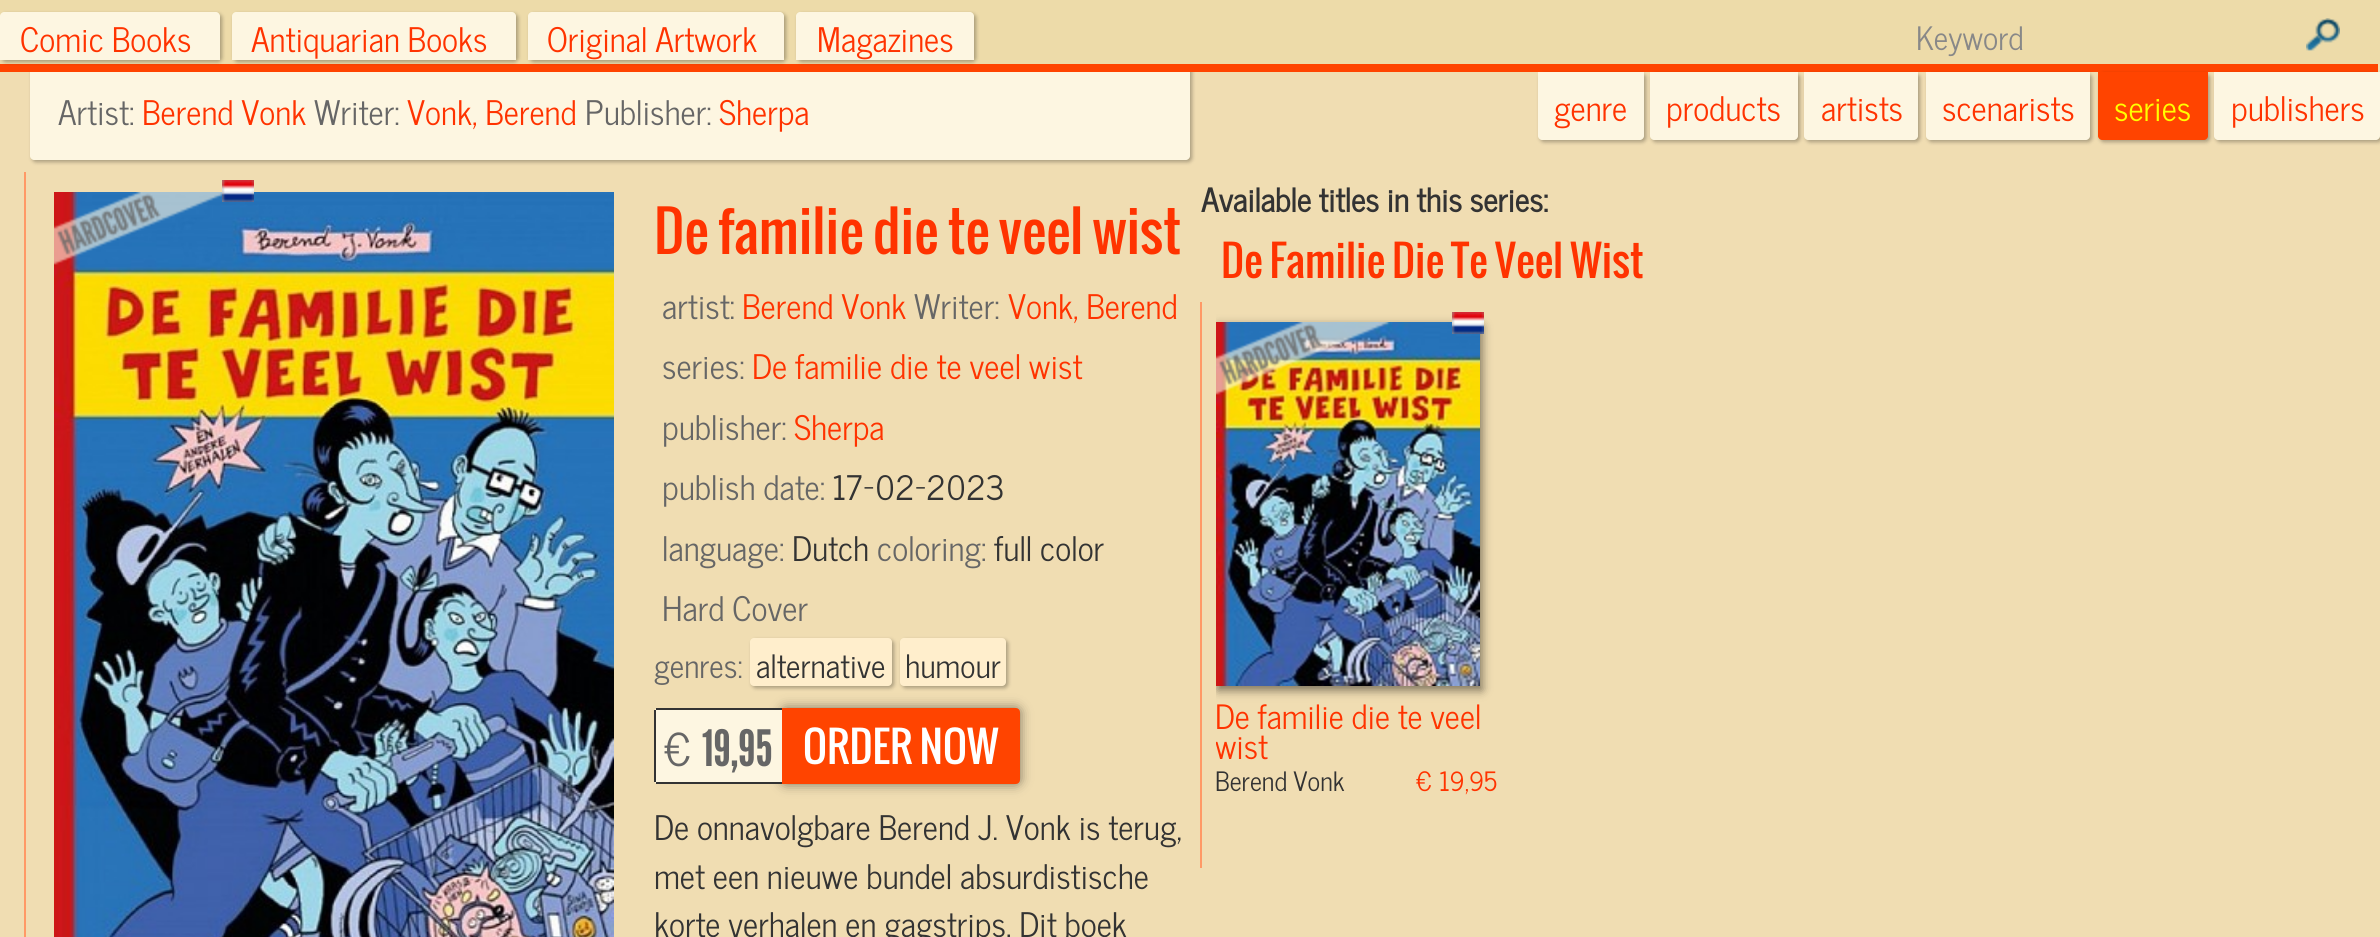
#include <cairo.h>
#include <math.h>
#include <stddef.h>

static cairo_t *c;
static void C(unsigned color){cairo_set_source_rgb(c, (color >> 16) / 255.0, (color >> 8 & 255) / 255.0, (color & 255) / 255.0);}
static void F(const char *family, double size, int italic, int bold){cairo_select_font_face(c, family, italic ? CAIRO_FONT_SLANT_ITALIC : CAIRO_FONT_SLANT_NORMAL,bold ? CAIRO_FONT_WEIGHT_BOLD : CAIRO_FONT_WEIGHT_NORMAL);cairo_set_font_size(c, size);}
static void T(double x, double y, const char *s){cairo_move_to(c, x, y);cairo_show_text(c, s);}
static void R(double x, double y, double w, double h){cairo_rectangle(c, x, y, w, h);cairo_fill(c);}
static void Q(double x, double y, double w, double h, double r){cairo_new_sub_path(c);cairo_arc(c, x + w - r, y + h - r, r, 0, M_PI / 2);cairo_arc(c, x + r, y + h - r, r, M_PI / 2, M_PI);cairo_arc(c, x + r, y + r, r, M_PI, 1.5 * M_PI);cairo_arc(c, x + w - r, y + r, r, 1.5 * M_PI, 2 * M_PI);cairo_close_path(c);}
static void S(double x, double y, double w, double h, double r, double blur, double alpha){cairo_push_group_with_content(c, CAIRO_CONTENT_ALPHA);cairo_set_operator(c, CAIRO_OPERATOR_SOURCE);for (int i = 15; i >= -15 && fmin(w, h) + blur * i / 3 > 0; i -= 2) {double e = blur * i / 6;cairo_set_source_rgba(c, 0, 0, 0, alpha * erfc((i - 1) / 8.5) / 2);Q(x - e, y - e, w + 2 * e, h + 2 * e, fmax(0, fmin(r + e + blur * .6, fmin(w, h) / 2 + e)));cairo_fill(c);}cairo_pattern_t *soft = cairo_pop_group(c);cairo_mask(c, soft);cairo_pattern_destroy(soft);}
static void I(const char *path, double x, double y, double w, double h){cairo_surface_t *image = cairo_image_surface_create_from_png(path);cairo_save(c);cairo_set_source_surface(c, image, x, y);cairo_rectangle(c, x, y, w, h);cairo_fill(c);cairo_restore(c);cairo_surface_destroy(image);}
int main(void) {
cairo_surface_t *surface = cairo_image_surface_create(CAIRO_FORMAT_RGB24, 2380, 937);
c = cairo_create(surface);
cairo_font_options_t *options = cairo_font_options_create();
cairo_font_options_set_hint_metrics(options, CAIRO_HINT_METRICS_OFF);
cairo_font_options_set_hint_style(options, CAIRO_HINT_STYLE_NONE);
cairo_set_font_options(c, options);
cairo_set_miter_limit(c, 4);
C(0xf0ddb2);
cairo_paint(c);
C(0x000000);
S(32,-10,1160,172,4,2,.3);
C(0xfdf6e1);
cairo_new_path(c);
cairo_move_to(c,30,-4);
cairo_line_to(c,1190,-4);
cairo_line_to(c,1190,156);
cairo_curve_to(c,1190,158,1188,160,1186,160);
cairo_line_to(c,34,160);
cairo_curve_to(c,32,160,30,158,30,156);
cairo_close_path(c);
cairo_fill(c);
C(0xeddba9);
R(0,0,2380,64);
C(0xff4400);
R(0,64,2378,8);
C(0x000000);
S(2,14,220,48,4,2,.3);
C(0xfdf6e1);
cairo_new_path(c);
cairo_move_to(c,4,12);
cairo_line_to(c,216,12);
cairo_curve_to(c,218,12,220,14,220,16);
cairo_line_to(c,220,60);
cairo_line_to(c,0,60);
cairo_line_to(c,0,16);
cairo_curve_to(c,0,14,2,12,4,12);
cairo_close_path(c);
cairo_fill(c);
F("News Cycle Medium",33.6,0,0);
C(0xff3300);
T(20,52,"Comic Books");
C(0x000000);
S(234,14,284,48,4,2,.3);
C(0xfdf6e1);
cairo_new_path(c);
cairo_move_to(c,236,12);
cairo_line_to(c,512,12);
cairo_curve_to(c,514,12,516,14,516,16);
cairo_line_to(c,516,60);
cairo_line_to(c,232,60);
cairo_line_to(c,232,16);
cairo_curve_to(c,232,14,234,12,236,12);
cairo_close_path(c);
cairo_fill(c);
C(0xff3300);
T(251,52,"Antiquarian Books");
C(0x000000);
S(530,14,256,48,4,2,.3);
C(0xfdf6e1);
cairo_new_path(c);
cairo_move_to(c,532,12);
cairo_line_to(c,780,12);
cairo_curve_to(c,782,12,784,14,784,16);
cairo_line_to(c,784,60);
cairo_line_to(c,528,60);
cairo_line_to(c,528,16);
cairo_curve_to(c,528,14,530,12,532,12);
cairo_close_path(c);
cairo_fill(c);
C(0xff3300);
T(547,52,"Original Artwork");
C(0x000000);
S(798,14,178,48,4,2,.3);
C(0xfdf6e1);
cairo_new_path(c);
cairo_move_to(c,800,12);
cairo_line_to(c,970,12);
cairo_curve_to(c,972,12,974,14,974,16);
cairo_line_to(c,974,60);
cairo_line_to(c,796,60);
cairo_line_to(c,796,16);
cairo_curve_to(c,796,14,798,12,800,12);
cairo_close_path(c);
cairo_fill(c);
C(0xff3300);
T(817,52,"Magazines");
I("1.png",2306,18,34,33);
F("News Cycle Medium",32,0,0);
C(0x888888);
T(1916,50,"Keyword");
C(0x000000);
S(1540,74,106,68,4,2,.3);
C(0xfdf6e1);
cairo_new_path(c);
cairo_move_to(c,1538,72);
cairo_line_to(c,1644,72);
cairo_line_to(c,1644,136);
cairo_curve_to(c,1644,138,1642,140,1640,140);
cairo_line_to(c,1542,140);
cairo_curve_to(c,1540,140,1538,138,1538,136);
cairo_close_path(c);
cairo_fill(c);
F("News Cycle Medium",33.6,0,0);
C(0xff3300);
T(1554,121,"genre");
C(0x000000);
S(1652,74,148,68,4,2,.3);
C(0xfdf6e1);
cairo_new_path(c);
cairo_move_to(c,1650,72);
cairo_line_to(c,1798,72);
cairo_line_to(c,1798,136);
cairo_curve_to(c,1798,138,1796,140,1794,140);
cairo_line_to(c,1654,140);
cairo_curve_to(c,1652,140,1650,138,1650,136);
cairo_close_path(c);
cairo_fill(c);
C(0xff3300);
T(1666,121,"products");
C(0x000000);
S(1806,74,114,68,4,2,.3);
C(0xfdf6e1);
cairo_new_path(c);
cairo_move_to(c,1804,72);
cairo_line_to(c,1918,72);
cairo_line_to(c,1918,136);
cairo_curve_to(c,1918,138,1916,140,1914,140);
cairo_line_to(c,1808,140);
cairo_curve_to(c,1806,140,1804,138,1804,136);
cairo_close_path(c);
cairo_fill(c);
C(0xff3300);
T(1821,121,"artists");
C(0x000000);
S(1928,74,164,68,4,2,.3);
C(0xfdf6e1);
cairo_new_path(c);
cairo_move_to(c,1926,72);
cairo_line_to(c,2090,72);
cairo_line_to(c,2090,136);
cairo_curve_to(c,2090,138,2088,140,2086,140);
cairo_line_to(c,1930,140);
cairo_curve_to(c,1928,140,1926,138,1926,136);
cairo_close_path(c);
cairo_fill(c);
C(0xff3300);
T(1942,121,"scenarists");
C(0x000000);
S(2100,74,110,68,4,2,.3);
C(0xff4400);
cairo_new_path(c);
cairo_move_to(c,2098,72);
cairo_line_to(c,2208,72);
cairo_line_to(c,2208,136);
cairo_curve_to(c,2208,138,2206,140,2204,140);
cairo_line_to(c,2102,140);
cairo_curve_to(c,2100,140,2098,138,2098,136);
cairo_close_path(c);
cairo_fill(c);
C(0xffff00);
T(2114,121,"series");
C(0x000000);
S(2216,74,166,68,4,2,.3);
C(0xfdf6e1);
cairo_new_path(c);
cairo_move_to(c,2214,72);
cairo_line_to(c,2380,72);
cairo_line_to(c,2380,136);
cairo_curve_to(c,2380,138,2378,140,2376,140);
cairo_line_to(c,2218,140);
cairo_curve_to(c,2216,140,2214,138,2214,136);
cairo_close_path(c);
cairo_fill(c);
C(0xff3300);
T(2231,121,"publishers");
C(0x666666);
T(58,125,"Artist:");
C(0xff3300);
T(142,125,"Berend Vonk");
C(0x666666);
T(314,125,"Writer:");
C(0xff3300);
T(407,125,"Vonk, Berend");
C(0x666666);
T(585,125,"Publisher:");
C(0xff3300);
T(719,125,"Sherpa");
F("News Cycle",32,0,1);
C(0x333333);
T(1201,212,"Available titles in this series:");
C(0xff9966);
R(24,172,2,765);
I("3.png",54,192,560,745);
I("2.png",222,180,32,22);
I("4.png",54,192,168,73);
F("Oswald",54.5,0,0);
C(0xff3300);
T(654,254,"De familie die te veel wist");
F("News Cycle Medium",33.6,0,0);
C(0x666666);
T(662,319,"artist:");
C(0xff3300);
T(742,319,"Berend Vonk");
C(0x666666);
T(914,319,"Writer:");
C(0xff3300);
T(1008,319,"Vonk, Berend");
C(0x666666);
T(662,379,"series:");
C(0xff3300);
T(752,379,"De familie die te veel wist");
C(0x666666);
T(662,440,"publisher:");
C(0xff3300);
T(794,440,"Sherpa");
C(0x666666);
T(662,500,"publish date:");
C(0x333333);
T(832,500,"17-02-2023");
C(0x666666);
T(662,561,"language:");
C(0x333333);
T(792,561,"Dutch");
C(0x666666);
T(877,561,"coloring:");
C(0x333333);
T(994,561,"full color");
C(0x666666);
T(662,621,"Hard Cover");
F("News Cycle Medium",32,0,0);
T(654,678,"genres:");
C(0x000000);
S(752,640,142,48,4,2,.3);
C(0xffeecc);
Q(750,638,142,48,4);
cairo_fill(c);
C(0x333333);
T(756,678,"alternative");
C(0x000000);
S(902,640,106,48,4,2,.3);
C(0xffeecc);
Q(900,638,106,48,4);
cairo_fill(c);
C(0x333333);
T(905,678,"humour");
C(0x0a0a0a);
S(782,708,238,76,4,6,.5);
C(0xfdf6e1);
cairo_new_path(c);
cairo_move_to(c,658,708);
cairo_line_to(c,782,708);
cairo_line_to(c,782,784);
cairo_line_to(c,658,784);
cairo_curve_to(c,656,784,654,782,654,780);
cairo_line_to(c,654,712);
cairo_curve_to(c,654,710,656,708,658,708);
cairo_close_path(c);
cairo_fill(c);
C(0x333333);
R(656,708,126,2);
R(656,782,126,2);
R(654,710,2,72);
F("News Cycle Medium",45,0,0);
C(0x666666);
T(664,766,"€");
F("League Gothic",50,0,0);
T(702,766,"19,95");
C(0xff4400);
cairo_new_path(c);
cairo_move_to(c,783,709);
cairo_line_to(c,1016,709);
cairo_curve_to(c,1017.5,709,1019,710.5,1019,712);
cairo_line_to(c,1019,780);
cairo_curve_to(c,1019,781.5,1017.5,783,1016,783);
cairo_line_to(c,783,783);
cairo_close_path(c);
cairo_fill_preserve(c);
cairo_stroke(c);
F("Oswald",41.6,0,0);
C(0xffffff);
T(803,764,"ORDER NOW");
F("News Cycle Medium",33.6,0,0);
C(0x333333);
T(654,840,"De onnavolgbare Berend J. Vonk is terug,");
T(654,889,"met een nieuwe bundel absurdistische");
T(654,937,"korte verhalen en gagstrips. Dit boek");
F("Oswald",41.6,0,0);
C(0xff3300);
T(1221,278,"De Familie Die Te Veel Wist");
C(0xff9966);
R(1200,302,2,566);
cairo_save(c);
cairo_rectangle(c,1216,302,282,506);
cairo_clip(c);
C(0x000000);
S(1218,326,264,364,0,5,.5);
cairo_restore(c);
I("5.png",1216,322,264,364);
I("6.png",1216,322,174,73);
I("2.png",1452,312,32,22);
F("News Cycle Medium",33.25,0,0);
C(0xff3300);
T(1215,729,"De familie die te veel");
cairo_save(c);
cairo_rectangle(c,1216,302,282,506);
cairo_clip(c);
T(1215,759,"wist");
cairo_restore(c);
F("News Cycle Medium",26.5,0,0);
C(0x333333);
T(1215,791,"Berend Vonk");
C(0xff3300);
T(1416,791,"€ 19,95");
cairo_surface_write_to_png(surface, "o.png");
cairo_font_options_destroy(options);
cairo_destroy(c);
cairo_surface_destroy(surface);
return 0;
}
